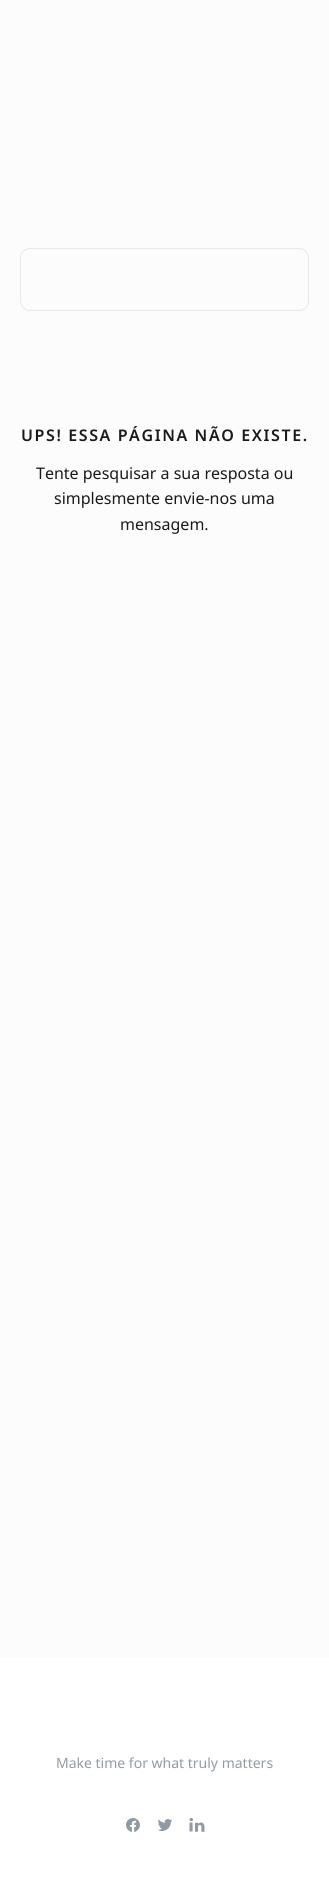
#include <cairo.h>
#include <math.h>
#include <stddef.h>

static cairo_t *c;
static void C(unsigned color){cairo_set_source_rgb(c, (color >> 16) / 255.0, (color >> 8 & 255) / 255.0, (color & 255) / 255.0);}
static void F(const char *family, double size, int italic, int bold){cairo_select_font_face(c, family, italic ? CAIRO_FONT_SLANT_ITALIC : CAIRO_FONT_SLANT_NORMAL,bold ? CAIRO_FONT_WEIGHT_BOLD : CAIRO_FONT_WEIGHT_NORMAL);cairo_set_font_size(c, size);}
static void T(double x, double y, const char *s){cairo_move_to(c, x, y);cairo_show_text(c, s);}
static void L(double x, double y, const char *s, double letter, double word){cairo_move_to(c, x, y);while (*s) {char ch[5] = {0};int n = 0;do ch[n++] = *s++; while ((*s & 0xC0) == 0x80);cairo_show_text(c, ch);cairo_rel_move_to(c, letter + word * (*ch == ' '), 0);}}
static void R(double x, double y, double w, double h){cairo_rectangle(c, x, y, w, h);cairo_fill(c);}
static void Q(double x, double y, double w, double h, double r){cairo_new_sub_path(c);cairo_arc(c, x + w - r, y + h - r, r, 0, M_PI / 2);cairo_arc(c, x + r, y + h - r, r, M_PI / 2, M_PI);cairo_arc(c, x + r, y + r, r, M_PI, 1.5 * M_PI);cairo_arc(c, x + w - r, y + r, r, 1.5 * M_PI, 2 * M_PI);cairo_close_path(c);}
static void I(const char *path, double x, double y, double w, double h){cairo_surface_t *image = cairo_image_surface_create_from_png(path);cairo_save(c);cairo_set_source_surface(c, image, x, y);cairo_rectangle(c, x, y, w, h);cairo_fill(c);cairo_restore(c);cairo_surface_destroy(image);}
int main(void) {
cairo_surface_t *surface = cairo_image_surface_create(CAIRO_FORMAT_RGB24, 329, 1885);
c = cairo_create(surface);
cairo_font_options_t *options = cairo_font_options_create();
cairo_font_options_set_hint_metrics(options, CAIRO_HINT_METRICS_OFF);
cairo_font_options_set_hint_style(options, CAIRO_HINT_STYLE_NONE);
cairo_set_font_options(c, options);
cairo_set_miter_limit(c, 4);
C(0xfcfcfc);
cairo_paint(c);
Q(20.5,248.5,288,62,9.5);
cairo_set_source_rgba(c,0,0,0,0.08);
cairo_set_line_width(c,1);
cairo_stroke(c);
F("Noto Sans SemiBold",16,0,0);
C(0x1a1a1a);
L(21,441,"UPS! ESSA PÁGINA NÃO EXISTE.",1.6,0);
F("Noto Sans",16,0,0);
T(36,479,"Tente pesquisar a sua resposta ou");
T(54,504,"simplesmente envie-nos uma");
T(120,530,"mensagem.");
C(0xffffff);
R(0,1657,329,228);
F("Noto Sans",14,0,0);
C(0x929ba5);
T(56,1768,"Make time for what truly matters");
I("1.png",126,1818,14,14);
I("2.png",158,1819,15,12);
I("3.png",189,1818,16,14);
cairo_surface_write_to_png(surface, "o.png");
cairo_font_options_destroy(options);
cairo_destroy(c);
cairo_surface_destroy(surface);
return 0;
}
